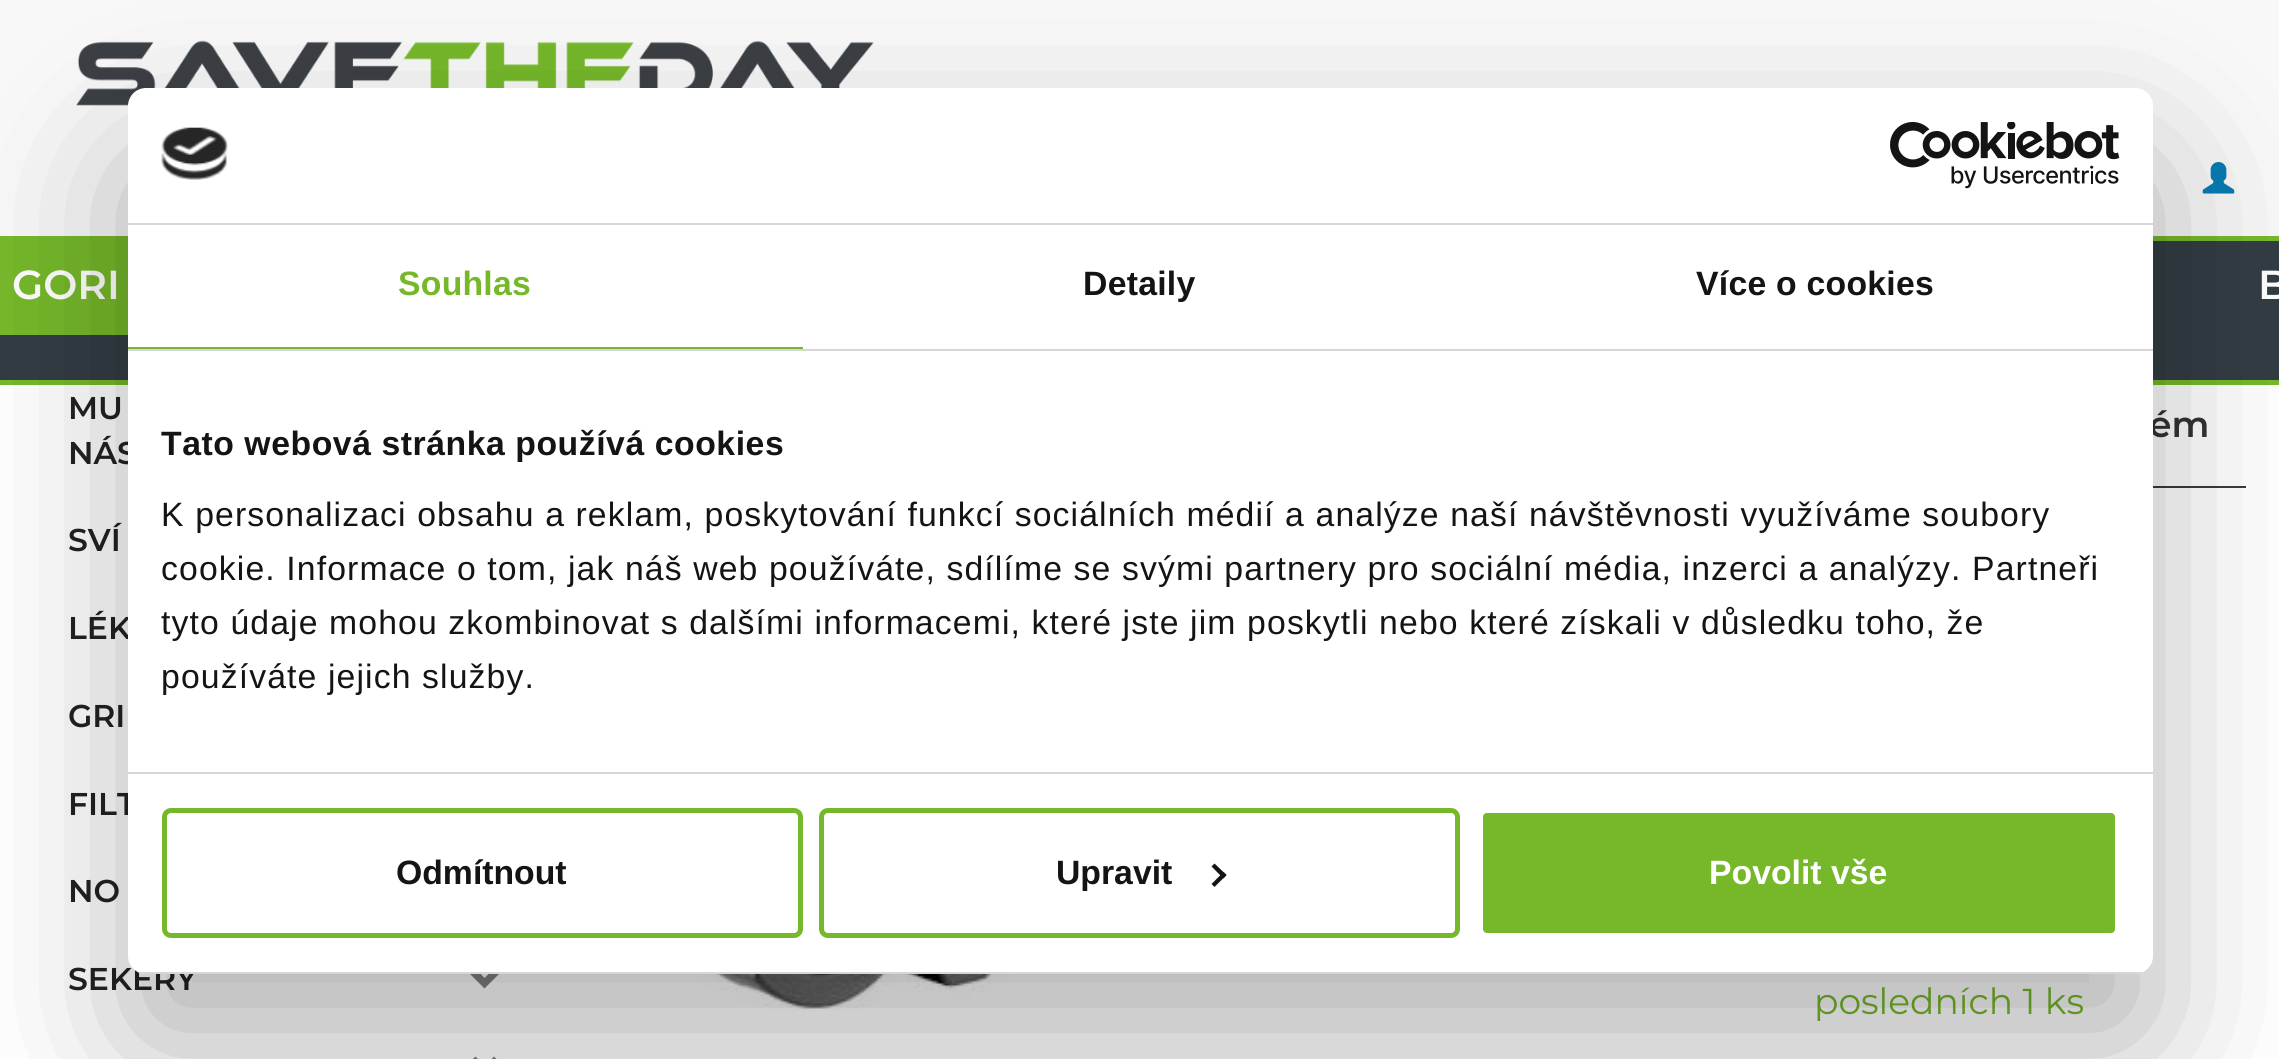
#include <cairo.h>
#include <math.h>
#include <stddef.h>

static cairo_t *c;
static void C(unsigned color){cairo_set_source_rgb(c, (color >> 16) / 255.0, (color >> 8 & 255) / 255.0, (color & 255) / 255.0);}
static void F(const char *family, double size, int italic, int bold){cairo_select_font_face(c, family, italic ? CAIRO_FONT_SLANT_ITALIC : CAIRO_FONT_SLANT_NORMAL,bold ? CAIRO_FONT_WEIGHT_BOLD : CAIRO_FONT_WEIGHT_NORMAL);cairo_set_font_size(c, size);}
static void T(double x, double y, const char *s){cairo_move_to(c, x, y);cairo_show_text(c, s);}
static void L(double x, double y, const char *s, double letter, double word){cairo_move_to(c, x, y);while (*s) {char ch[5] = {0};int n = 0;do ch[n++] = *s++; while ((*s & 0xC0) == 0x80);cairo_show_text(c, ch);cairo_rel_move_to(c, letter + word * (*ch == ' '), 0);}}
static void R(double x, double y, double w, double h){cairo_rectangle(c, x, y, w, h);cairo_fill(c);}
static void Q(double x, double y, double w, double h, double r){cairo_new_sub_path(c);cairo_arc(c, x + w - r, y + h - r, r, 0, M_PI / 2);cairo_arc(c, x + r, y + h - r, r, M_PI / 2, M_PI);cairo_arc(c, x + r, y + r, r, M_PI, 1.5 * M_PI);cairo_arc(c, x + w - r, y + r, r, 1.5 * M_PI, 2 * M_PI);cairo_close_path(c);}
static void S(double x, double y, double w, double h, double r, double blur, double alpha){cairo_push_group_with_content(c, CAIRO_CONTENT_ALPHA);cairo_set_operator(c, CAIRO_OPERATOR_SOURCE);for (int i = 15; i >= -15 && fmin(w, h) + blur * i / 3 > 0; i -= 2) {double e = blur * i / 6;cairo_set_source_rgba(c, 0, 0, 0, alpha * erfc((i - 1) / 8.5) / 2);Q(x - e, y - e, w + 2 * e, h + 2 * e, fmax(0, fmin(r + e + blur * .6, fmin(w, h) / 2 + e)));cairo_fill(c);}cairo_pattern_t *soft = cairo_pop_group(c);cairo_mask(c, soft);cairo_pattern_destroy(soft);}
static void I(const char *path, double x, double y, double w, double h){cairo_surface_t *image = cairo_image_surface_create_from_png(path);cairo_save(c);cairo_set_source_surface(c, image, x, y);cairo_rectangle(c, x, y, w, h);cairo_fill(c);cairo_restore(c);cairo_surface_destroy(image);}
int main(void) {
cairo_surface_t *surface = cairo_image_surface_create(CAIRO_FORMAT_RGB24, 2279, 1059);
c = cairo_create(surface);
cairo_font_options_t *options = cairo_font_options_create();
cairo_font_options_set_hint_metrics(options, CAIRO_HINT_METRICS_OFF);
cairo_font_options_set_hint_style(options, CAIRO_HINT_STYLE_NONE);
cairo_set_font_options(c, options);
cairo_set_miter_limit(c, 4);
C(0xffffff);
cairo_paint(c);
C(0xf8f8f8);
R(0,0,2279,236);
C(0x76b82a);
R(0,236,2279,5);
I("1.png",76,40,798,66);
I("2.png",2202,162,33,32);
C(0x323d43);
R(0,241,2279,139);
C(0x76b82a);
R(0,380,2279,5);
R(0,241,128,94);
F("Montserrat SemiBold",40.5,0,0);
C(0xffffff);
T(12,299,"GORI");
T(2258,299,"B");
F("Montserrat SemiBold",31.5,0,0);
C(0x222222);
T(68,419,"MU");
T(68,464,"NÁS");
T(68,551,"SVÍ");
T(68,639,"LÉK");
T(68,727,"GRI");
T(68,815,"FILT");
T(68,902,"NO");
T(68,990,"SEKERY");
C(0x808080);
cairo_new_path(c);
cairo_move_to(c,499,974);
cairo_line_to(c,484.5,988.5);
cairo_line_to(c,470,974);
cairo_line_to(c,475.5,968.5);
cairo_line_to(c,484.5,978);
cairo_line_to(c,494,968.5);
cairo_close_path(c);
cairo_fill(c);
cairo_new_path(c);
cairo_move_to(c,499,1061.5);
cairo_line_to(c,484.5,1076);
cairo_line_to(c,470,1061.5);
cairo_line_to(c,475.5,1056.5);
cairo_line_to(c,484.5,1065.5);
cairo_line_to(c,494,1056.5);
cairo_close_path(c);
cairo_fill(c);
C(0x323d43);
R(2153,486,93,2);
F("Montserrat SemiBold",36,0,0);
C(0x333333);
T(2149,437,"ém");
I("3.png",685,974,467,37);
F("Montserrat",36,0,0);
C(0x76b82a);
T(1814,1014,"posledních 1 ks");
C(0x000000);
S(128,160,2025,886,18,76.5,.3);
C(0xffffff);
Q(128,88,2025,886,18);
cairo_fill(c);
C(0xd6d6d6);
R(128,223,2025,2);
I("4.png",161,127,67,53);
I("5.png",1890,122,230,67);
R(128,349,2025,2);
C(0x76b82a);
R(128,347,675,2);
F("Liberation Sans",33.75,0,1);
L(398,295,"Souhlas",.25,0);
C(0x141414);
L(1083,295,"Detaily",.25,0);
L(1696,295,"Více o cookies",.25,0);
C(0xd6d6d6);
R(128,772,2025,2);
C(0x141414);
L(161,455,"Tato webová stránka používá cookies",.55,0);
F("Liberation Sans",33.75,0,0);
L(161,526,"K personalizaci obsahu a reklam, poskytování funkcí sociálních médií a analýze naší návštěvnosti využíváme soubory",1.12,0);
L(161,580,"cookie. Informace o tom, jak náš web používáte, sdílíme se svými partnery pro sociální média, inzerci a analýzy. Partneři",1.12,0);
L(161,634,"tyto údaje mohou zkombinovat s dalšími informacemi, které jste jim poskytli nebo které získali v důsledku toho, že",1.12,0);
L(161,688,"používáte jejich služby.",1.12,0);
cairo_save(c);
Q(128,88,2025,886,18);
cairo_clip(c);
C(0xd6d6d6);
R(138,972,2005,2);
cairo_restore(c);
Q(164.5,810.5,636,125,6.5);
C(0x76b82a);
cairo_set_line_width(c,5);
cairo_stroke(c);
F("Liberation Sans",33.75,0,1);
C(0x141414);
T(396,884,"Odmítnout");
Q(821.5,810.5,636,125,6.5);
C(0x76b82a);
cairo_stroke(c);
C(0x141414);
T(1056,884,"Upravit");
cairo_new_path(c);
cairo_move_to(c,1214.5,863.5);
cairo_line_to(c,1226.5,875);
cairo_line_to(c,1223.5,878.5);
cairo_line_to(c,1211.5,866.5);
cairo_close_path(c);
cairo_fill(c);
cairo_new_path(c);
cairo_move_to(c,1223.5,872);
cairo_line_to(c,1226.5,875);
cairo_line_to(c,1214.5,887);
cairo_line_to(c,1211.5,884);
cairo_close_path(c);
cairo_fill(c);
C(0x76b82a);
Q(1480.5,810.5,637,125,6.5);
cairo_fill_preserve(c);
C(0xffffff);
cairo_stroke(c);
T(1709,884,"Povolit vše");
cairo_surface_write_to_png(surface, "o.png");
cairo_font_options_destroy(options);
cairo_destroy(c);
cairo_surface_destroy(surface);
return 0;
}
